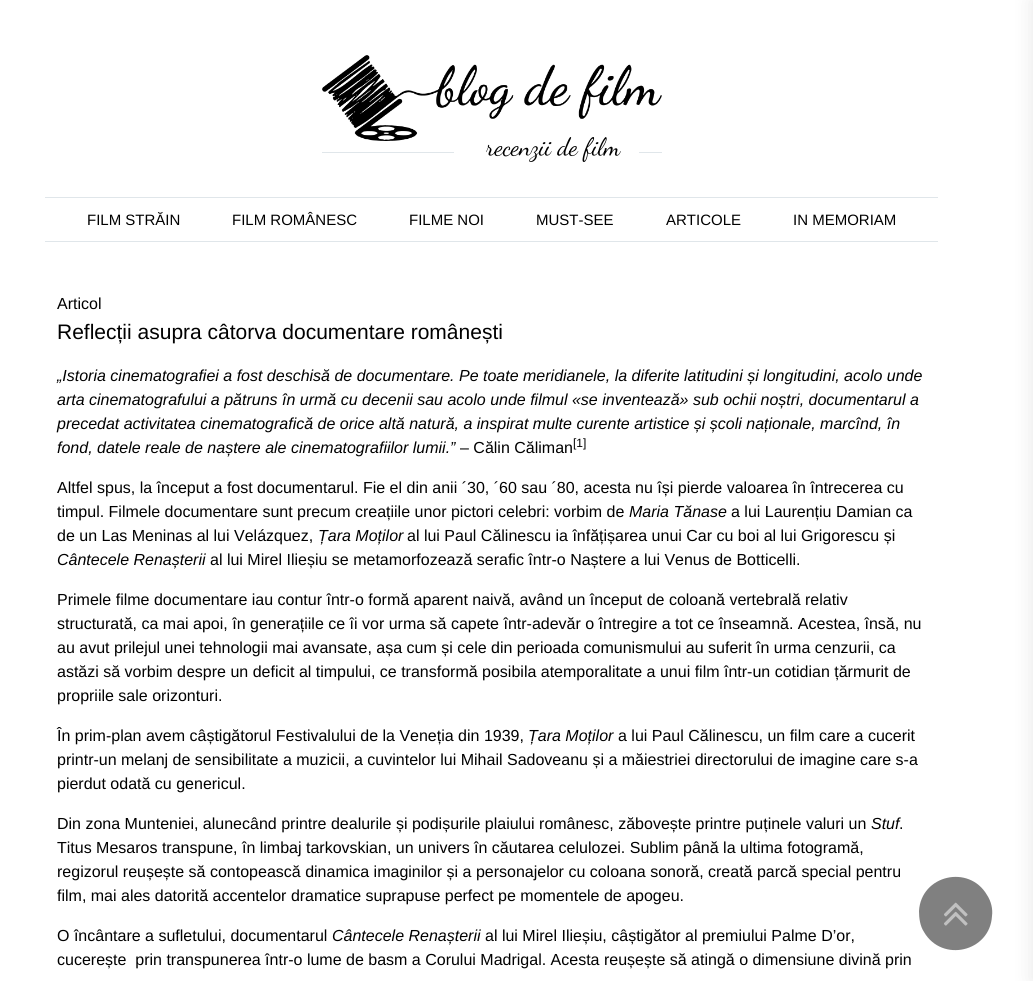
#include <cairo.h>
#include <math.h>
#include <stddef.h>

static cairo_t *c;
static void C(unsigned color){cairo_set_source_rgb(c, (color >> 16) / 255.0, (color >> 8 & 255) / 255.0, (color & 255) / 255.0);}
static void F(const char *family, double size, int italic, int bold){cairo_select_font_face(c, family, italic ? CAIRO_FONT_SLANT_ITALIC : CAIRO_FONT_SLANT_NORMAL,bold ? CAIRO_FONT_WEIGHT_BOLD : CAIRO_FONT_WEIGHT_NORMAL);cairo_set_font_size(c, size);}
static void T(double x, double y, const char *s){cairo_move_to(c, x, y);cairo_show_text(c, s);}
static void R(double x, double y, double w, double h){cairo_rectangle(c, x, y, w, h);cairo_fill(c);}
static void Q(double x, double y, double w, double h, double r){cairo_new_sub_path(c);cairo_arc(c, x + w - r, y + h - r, r, 0, M_PI / 2);cairo_arc(c, x + r, y + h - r, r, M_PI / 2, M_PI);cairo_arc(c, x + r, y + r, r, M_PI, 1.5 * M_PI);cairo_arc(c, x + w - r, y + r, r, 1.5 * M_PI, 2 * M_PI);cairo_close_path(c);}
static void S(double x, double y, double w, double h, double r, double blur, double alpha){cairo_push_group_with_content(c, CAIRO_CONTENT_ALPHA);cairo_set_operator(c, CAIRO_OPERATOR_SOURCE);for (int i = 15; i >= -15 && fmin(w, h) + blur * i / 3 > 0; i -= 2) {double e = blur * i / 6;cairo_set_source_rgba(c, 0, 0, 0, alpha * erfc((i - 1) / 8.5) / 2);Q(x - e, y - e, w + 2 * e, h + 2 * e, fmax(0, fmin(r + e + blur * .6, fmin(w, h) / 2 + e)));cairo_fill(c);}cairo_pattern_t *soft = cairo_pop_group(c);cairo_mask(c, soft);cairo_pattern_destroy(soft);}
static void I(const char *path, double x, double y, double w, double h){cairo_surface_t *image = cairo_image_surface_create_from_png(path);cairo_save(c);cairo_set_source_surface(c, image, x, y);cairo_rectangle(c, x, y, w, h);cairo_fill(c);cairo_restore(c);cairo_surface_destroy(image);}
int main(void) {
cairo_surface_t *surface = cairo_image_surface_create(CAIRO_FORMAT_RGB24, 1033, 981);
c = cairo_create(surface);
cairo_font_options_t *options = cairo_font_options_create();
cairo_font_options_set_hint_metrics(options, CAIRO_HINT_METRICS_OFF);
cairo_font_options_set_hint_style(options, CAIRO_HINT_STYLE_NONE);
cairo_set_font_options(c, options);
cairo_set_miter_limit(c, 4);
C(0xffffff);
cairo_paint(c);
I("1.png",322,55,340,86);
C(0xe0e6ea);
R(322,152,340,1);
C(0xffffff);
R(454,152,185,1);
F("Dancing Script",25,0,0);
C(0x000000);
T(486,155,"recenzii de film");
C(0xe0e6ea);
R(45,197,893,1);
R(45,241,893,1);
F("Liberation Sans",15,0,0);
C(0x000000);
T(87,225,"FILM STRĂIN");
T(232,225,"FILM ROMÂNESC");
T(409,225,"FILME NOI");
T(536,225,"MUST-SEE");
T(666,225,"ARTICOLE");
T(793,225,"IN MEMORIAM");
F("Liberation Sans",16,0,0);
T(57,309,"Articol");
F("Liberation Sans",21,0,0);
T(57,339,"Reflecții asupra câtorva documentare românești");
F("Liberation Sans",16,1,0);
T(57,381,"„Istoria cinematografiei a fost deschisă de documentare. Pe toate meridianele, la diferite latitudini și longitudini, acolo unde");
T(57,405,"arta cinematografului a pătruns în urmă cu decenii sau acolo unde filmul «se inventează» sub ochii noștri, documentarul a");
T(57,429,"precedat activitatea cinematografică de orice altă natură, a inspirat multe curente artistice și școli naționale, marcînd, în");
T(57,453,"fond, datele reale de naștere ale cinematografiilor lumii.”");
F("Liberation Sans",16,0,0);
T(460,453,"– Călin Căliman");
F("Liberation Sans",12,0,0);
T(573,447,"[1]");
F("Liberation Sans",16,0,0);
T(57,493,"Altfel spus, la început a fost documentarul. Fie el din anii ´30, ´60 sau ´80, acesta nu își pierde valoarea în întrecerea cu");
T(57,517,"timpul. Filmele documentare sunt precum creațiile unor pictori celebri: vorbim de");
F("Liberation Sans",16,1,0);
T(629,517,"Maria Tănase");
F("Liberation Sans",16,0,0);
T(731,517,"a lui Laurențiu Damian ca");
T(57,541,"de un Las Meninas al lui Velázquez,");
F("Liberation Sans",16,1,0);
T(318,541,"Țara Moților");
F("Liberation Sans",16,0,0);
T(407,541,"al lui Paul Călinescu ia înfățișarea unui Car cu boi al lui Grigorescu și");
F("Liberation Sans",16,1,0);
T(57,565,"Cântecele Renașterii");
F("Liberation Sans",16,0,0);
T(210,565,"al lui Mirel Ilieșiu se metamorfozează serafic într-o Naștere a lui Venus de Botticelli.");
T(57,605,"Primele filme documentare iau contur într-o formă aparent naivă, având un început de coloană vertebrală relativ");
T(57,629,"structurată, ca mai apoi, în generațiile ce îi vor urma să capete într-adevăr o întregire a tot ce înseamnă. Acestea, însă, nu");
T(57,653,"au avut prilejul unei tehnologii mai avansate, așa cum și cele din perioada comunismului au suferit în urma cenzurii, ca");
T(57,677,"astăzi să vorbim despre un deficit al timpului, ce transformă posibila atemporalitate a unui film într-un cotidian țărmurit de");
T(57,701,"propriile sale orizonturi.");
T(57,741,"În prim-plan avem câștigătorul Festivalului de la Veneția din 1939,");
F("Liberation Sans",16,1,0);
T(528,741,"Țara Moților");
F("Liberation Sans",16,0,0);
T(618,741,"a lui Paul Călinescu, un film care a cucerit");
T(57,765,"printr-un melanj de sensibilitate a muzicii, a cuvintelor lui Mihail Sadoveanu și a măiestriei directorului de imagine care s-a");
T(57,789,"pierdut odată cu genericul.");
T(57,829,"Din zona Munteniei, alunecând printre dealurile și podișurile plaiului românesc, zăbovește printre puținele valuri un");
F("Liberation Sans",16,1,0);
T(871,829,"Stuf");
F("Liberation Sans",16,0,0);
T(899,829,".");
T(57,853,"Titus Mesaros transpune, în limbaj tarkovskian, un univers în căutarea celulozei. Sublim până la ultima fotogramă,");
T(57,877,"regizorul reușește să contopească dinamica imaginilor și a personajelor cu coloana sonoră, creată parcă special pentru");
T(57,901,"film, mai ales datorită accentelor dramatice suprapuse perfect pe momentele de apogeu.");
T(57,941,"O încântare a sufletului, documentarul");
F("Liberation Sans",16,1,0);
T(332,941,"Cântecele Renașterii");
F("Liberation Sans",16,0,0);
T(485,941,"al lui Mirel Ilieșiu, câștigător al premiului Palme D’or,");
T(57,965,"cucerește  prin transpunerea într-o lume de basm a Corului Madrigal. Acesta reușește să atingă o dimensiune divină prin");
C(0x808080);
cairo_new_path(c);
cairo_move_to(c,987,895);
cairo_curve_to(c,991,901,993,909,992,916);
cairo_curve_to(c,990,952,942,963,924,932);
cairo_curve_to(c,920,926,919,918,919,911);
cairo_curve_to(c,921,875,969,864,987,895);
cairo_close_path(c);
cairo_fill(c);
I("2.png",944,902,24,24);
C(0x000000);
S(1033,0,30,981,0,10,.1);
cairo_surface_write_to_png(surface, "o.png");
cairo_font_options_destroy(options);
cairo_destroy(c);
cairo_surface_destroy(surface);
return 0;
}
